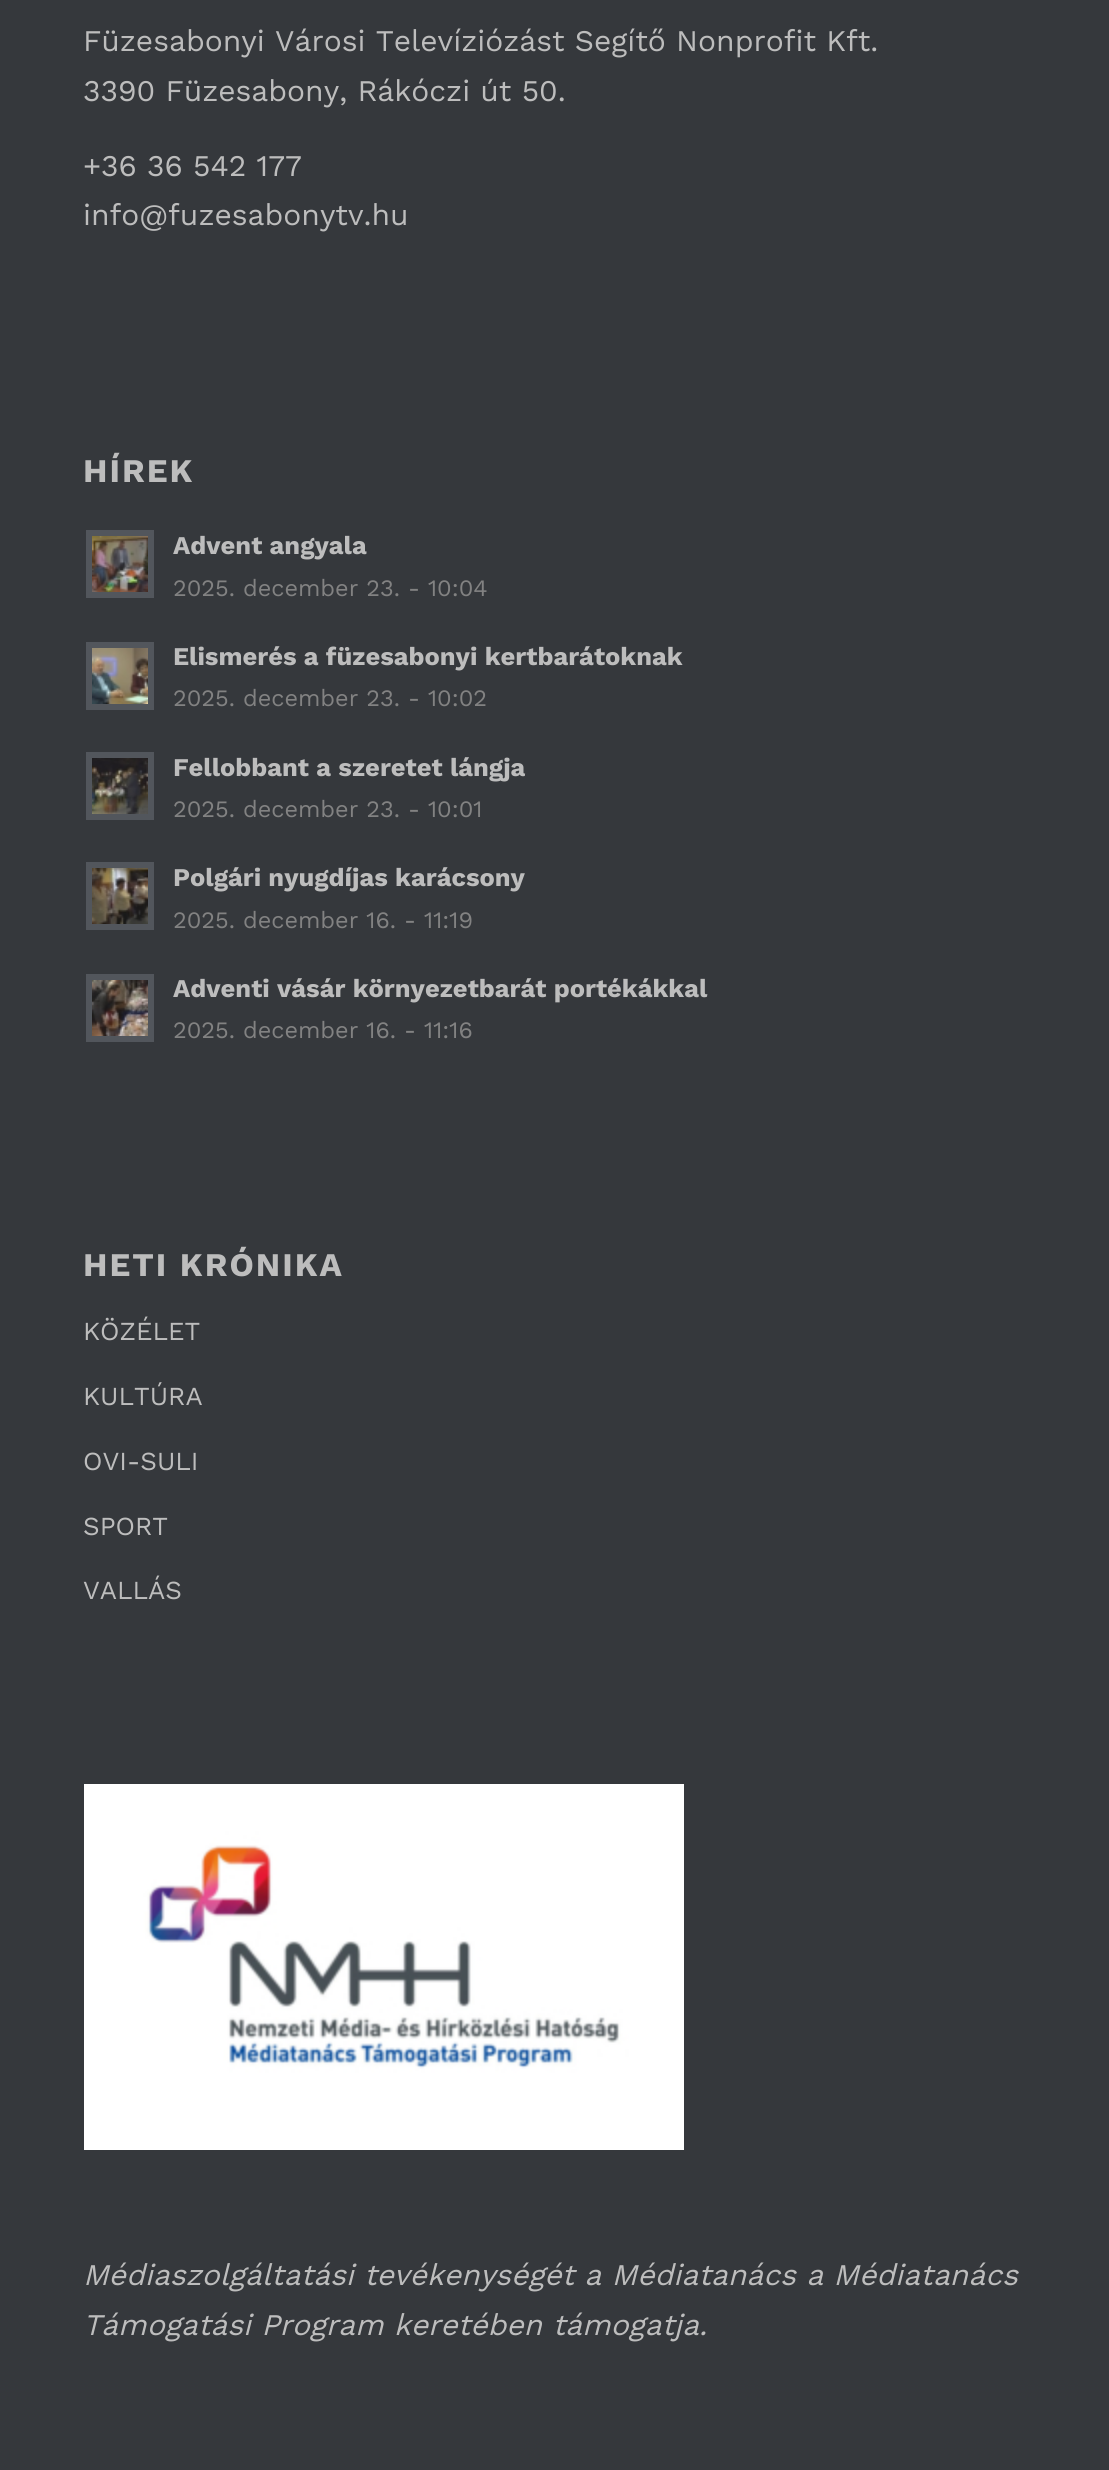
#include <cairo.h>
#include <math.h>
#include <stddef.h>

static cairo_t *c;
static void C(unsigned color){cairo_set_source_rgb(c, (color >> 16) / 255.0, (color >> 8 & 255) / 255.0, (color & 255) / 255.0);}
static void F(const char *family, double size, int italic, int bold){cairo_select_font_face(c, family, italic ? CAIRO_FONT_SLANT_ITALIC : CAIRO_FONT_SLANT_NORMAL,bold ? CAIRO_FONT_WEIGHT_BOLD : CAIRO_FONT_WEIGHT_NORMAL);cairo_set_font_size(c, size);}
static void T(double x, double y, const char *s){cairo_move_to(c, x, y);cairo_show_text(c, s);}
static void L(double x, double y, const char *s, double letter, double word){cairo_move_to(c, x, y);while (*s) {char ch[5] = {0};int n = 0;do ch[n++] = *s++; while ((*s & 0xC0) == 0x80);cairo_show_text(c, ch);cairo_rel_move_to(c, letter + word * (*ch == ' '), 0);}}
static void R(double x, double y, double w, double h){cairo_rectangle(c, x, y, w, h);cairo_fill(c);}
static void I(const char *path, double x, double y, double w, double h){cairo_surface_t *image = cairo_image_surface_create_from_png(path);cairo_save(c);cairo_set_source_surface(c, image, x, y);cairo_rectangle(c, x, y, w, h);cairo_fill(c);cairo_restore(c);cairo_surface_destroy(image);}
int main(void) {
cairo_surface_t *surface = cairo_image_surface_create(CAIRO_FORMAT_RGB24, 1109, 2470);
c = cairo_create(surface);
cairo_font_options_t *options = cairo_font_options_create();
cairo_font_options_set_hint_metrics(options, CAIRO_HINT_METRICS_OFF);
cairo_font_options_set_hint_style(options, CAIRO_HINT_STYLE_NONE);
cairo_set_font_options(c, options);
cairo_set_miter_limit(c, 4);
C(0x35383c);
cairo_paint(c);
F("Work Sans",30,0,0);
C(0xbdbdbd);
T(83,51,"Füzesabonyi Városi Televíziózást Segítő Nonprofit Kft.");
T(83,101,"3390 Füzesabony, Rákóczi út 50.");
T(83,176,"+36 36 542 177");
T(83,225,"info@fuzesabonytv.hu");
F("Work Sans",33,0,1);
L(83,482,"HÍREK",2,0);
C(0x52565c);
R(86,530,68,68);
I("1.png",92,536,56,56);
F("Work Sans",25.5,0,1);
C(0xbdbdbd);
T(173,554,"Advent angyala");
F("Work Sans",23.5,0,0);
C(0x828282);
T(173,596,"2025. december 23. - 10:04");
C(0x52565c);
R(86,642,68,68);
I("2.png",92,648,56,56);
F("Work Sans",25.5,0,1);
C(0xbdbdbd);
T(173,665,"Elismerés a füzesabonyi kertbarátoknak");
F("Work Sans",23.5,0,0);
C(0x828282);
T(173,706,"2025. december 23. - 10:02");
C(0x52565c);
R(86,752,68,68);
I("3.png",92,758,56,56);
F("Work Sans",25.5,0,1);
C(0xbdbdbd);
T(173,776,"Fellobbant a szeretet lángja");
F("Work Sans",23.5,0,0);
C(0x828282);
T(173,817,"2025. december 23. - 10:01");
C(0x52565c);
R(86,862,68,68);
I("4.png",92,868,56,56);
F("Work Sans",25.5,0,1);
C(0xbdbdbd);
T(173,886,"Polgári nyugdíjas karácsony");
F("Work Sans",23.5,0,0);
C(0x828282);
T(173,928,"2025. december 16. - 11:19");
C(0x52565c);
R(86,974,68,68);
I("5.png",92,980,56,56);
F("Work Sans",25.5,0,1);
C(0xbdbdbd);
T(173,997,"Adventi vásár környezetbarát portékákkal");
F("Work Sans",23.5,0,0);
C(0x828282);
T(173,1038,"2025. december 16. - 11:16");
F("Work Sans",33,0,1);
C(0xbdbdbd);
L(83,1276,"HETI KRÓNIKA",2,0);
F("Work Sans",26,0,0);
T(83,1340,"KÖZÉLET");
T(83,1405,"KULTÚRA");
T(83,1470,"OVI-SULI");
T(83,1535,"SPORT");
T(83,1599,"VALLÁS");
I("6.png",84,1784,600,366);
F("Work Sans",30,1,0);
T(83,2285,"Médiaszolgáltatási tevékenységét a Médiatanács a Médiatanács");
T(83,2335,"Támogatási Program keretében támogatja.");
cairo_surface_write_to_png(surface, "o.png");
cairo_font_options_destroy(options);
cairo_destroy(c);
cairo_surface_destroy(surface);
return 0;
}
